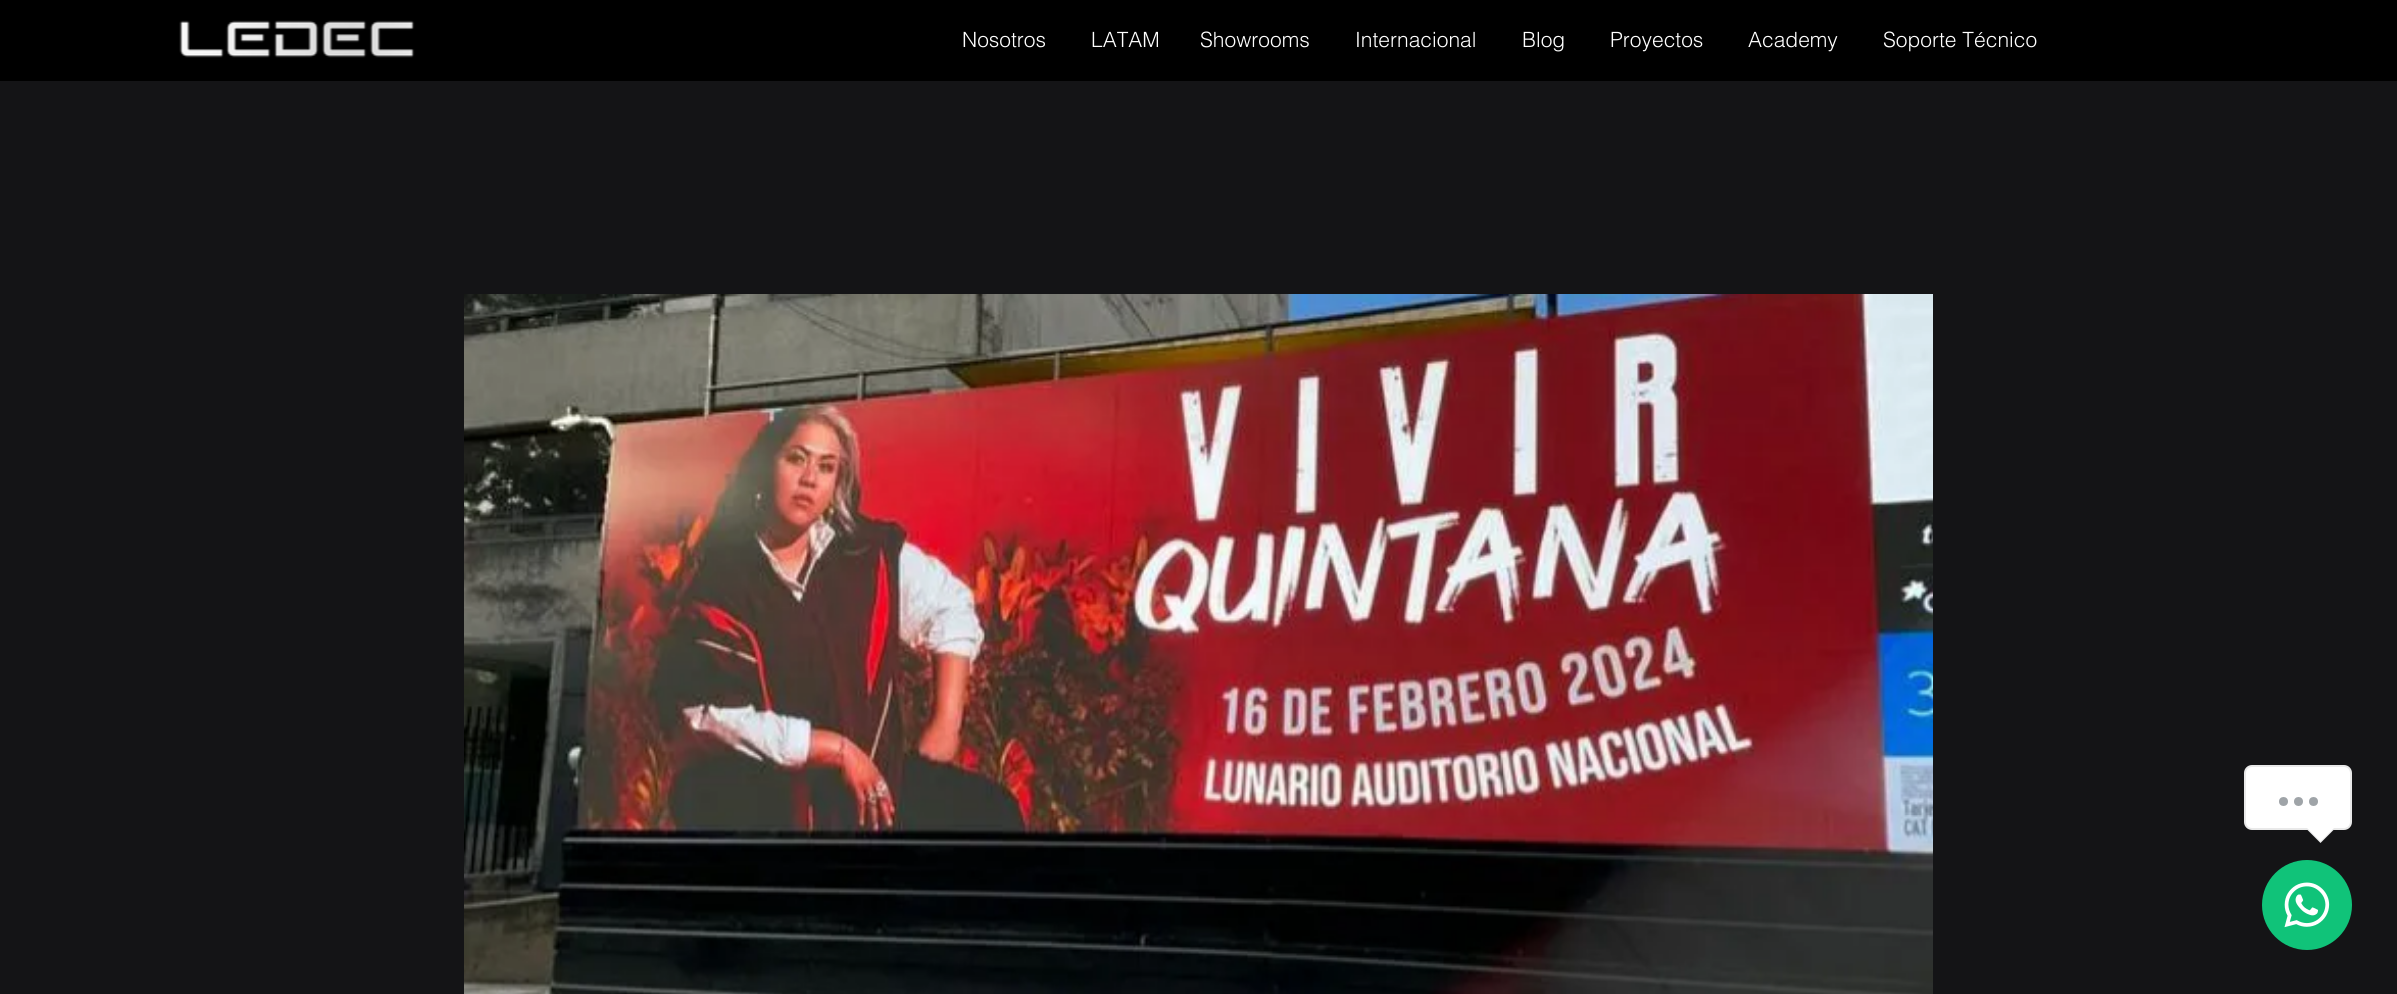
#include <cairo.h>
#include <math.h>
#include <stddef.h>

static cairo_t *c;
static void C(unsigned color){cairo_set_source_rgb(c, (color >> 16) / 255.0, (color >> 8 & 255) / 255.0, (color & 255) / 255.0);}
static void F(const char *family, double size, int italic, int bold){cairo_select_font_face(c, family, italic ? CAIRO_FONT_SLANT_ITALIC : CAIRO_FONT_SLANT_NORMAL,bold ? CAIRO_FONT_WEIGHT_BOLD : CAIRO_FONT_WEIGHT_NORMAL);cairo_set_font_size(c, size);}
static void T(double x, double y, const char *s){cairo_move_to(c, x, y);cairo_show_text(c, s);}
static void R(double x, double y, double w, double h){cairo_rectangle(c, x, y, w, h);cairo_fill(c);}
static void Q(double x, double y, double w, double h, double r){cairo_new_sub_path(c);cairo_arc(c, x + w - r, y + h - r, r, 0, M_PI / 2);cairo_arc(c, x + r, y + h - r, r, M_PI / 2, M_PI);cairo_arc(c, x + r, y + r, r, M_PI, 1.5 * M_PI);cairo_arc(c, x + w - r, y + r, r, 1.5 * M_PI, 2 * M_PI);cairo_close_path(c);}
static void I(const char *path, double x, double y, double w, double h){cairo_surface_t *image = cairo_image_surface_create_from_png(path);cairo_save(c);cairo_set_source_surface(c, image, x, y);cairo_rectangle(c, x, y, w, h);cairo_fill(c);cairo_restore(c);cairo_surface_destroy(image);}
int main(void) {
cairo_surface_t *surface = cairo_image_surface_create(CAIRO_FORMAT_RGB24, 2397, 994);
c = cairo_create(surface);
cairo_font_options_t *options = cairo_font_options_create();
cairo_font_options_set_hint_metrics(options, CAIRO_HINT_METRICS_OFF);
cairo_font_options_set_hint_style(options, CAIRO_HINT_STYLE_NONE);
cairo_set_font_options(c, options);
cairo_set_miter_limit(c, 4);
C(0x141416);
cairo_paint(c);
C(0x000000);
R(0,0,2397,81);
I("1.png",179,20,236,38);
F("helvetica Light",21,0,0);
C(0xffffff);
T(962,47,"Nosotros");
T(1091,47,"LATAM");
T(1200,47,"Showrooms");
T(1355,47,"Internacional");
T(1522,47,"Blog");
T(1610,47,"Proyectos");
T(1748,47,"Academy");
T(1883,47,"Soporte Técnico");
I("2.png",464,294,1469,700);
Q(2245,766,106,63,7);
cairo_fill_preserve(c);
C(0xe9e9e9);
cairo_stroke(c);
C(0x9fa4a8);
cairo_arc(c,2283.5,801.5,4.5,0,2 * M_PI);
cairo_fill(c);
cairo_arc(c,2298.5,801.5,4.5,0,2 * M_PI);
cairo_fill(c);
cairo_arc(c,2313.5,801.5,4.5,0,2 * M_PI);
cairo_fill(c);
C(0xe9e9e9);
cairo_new_path(c);
cairo_move_to(c,2305.5,828);
cairo_line_to(c,2335.5,828);
cairo_line_to(c,2320.5,843);
cairo_close_path(c);
cairo_fill(c);
C(0xffffff);
cairo_new_path(c);
cairo_move_to(c,2307,828);
cairo_line_to(c,2334,828);
cairo_line_to(c,2320.5,841.5);
cairo_close_path(c);
cairo_fill(c);
C(0x10c379);
cairo_arc(c,2307,905,45,0,2 * M_PI);
cairo_fill(c);
I("3.png",2284,882,46,46);
cairo_surface_write_to_png(surface, "o.png");
cairo_font_options_destroy(options);
cairo_destroy(c);
cairo_surface_destroy(surface);
return 0;
}
